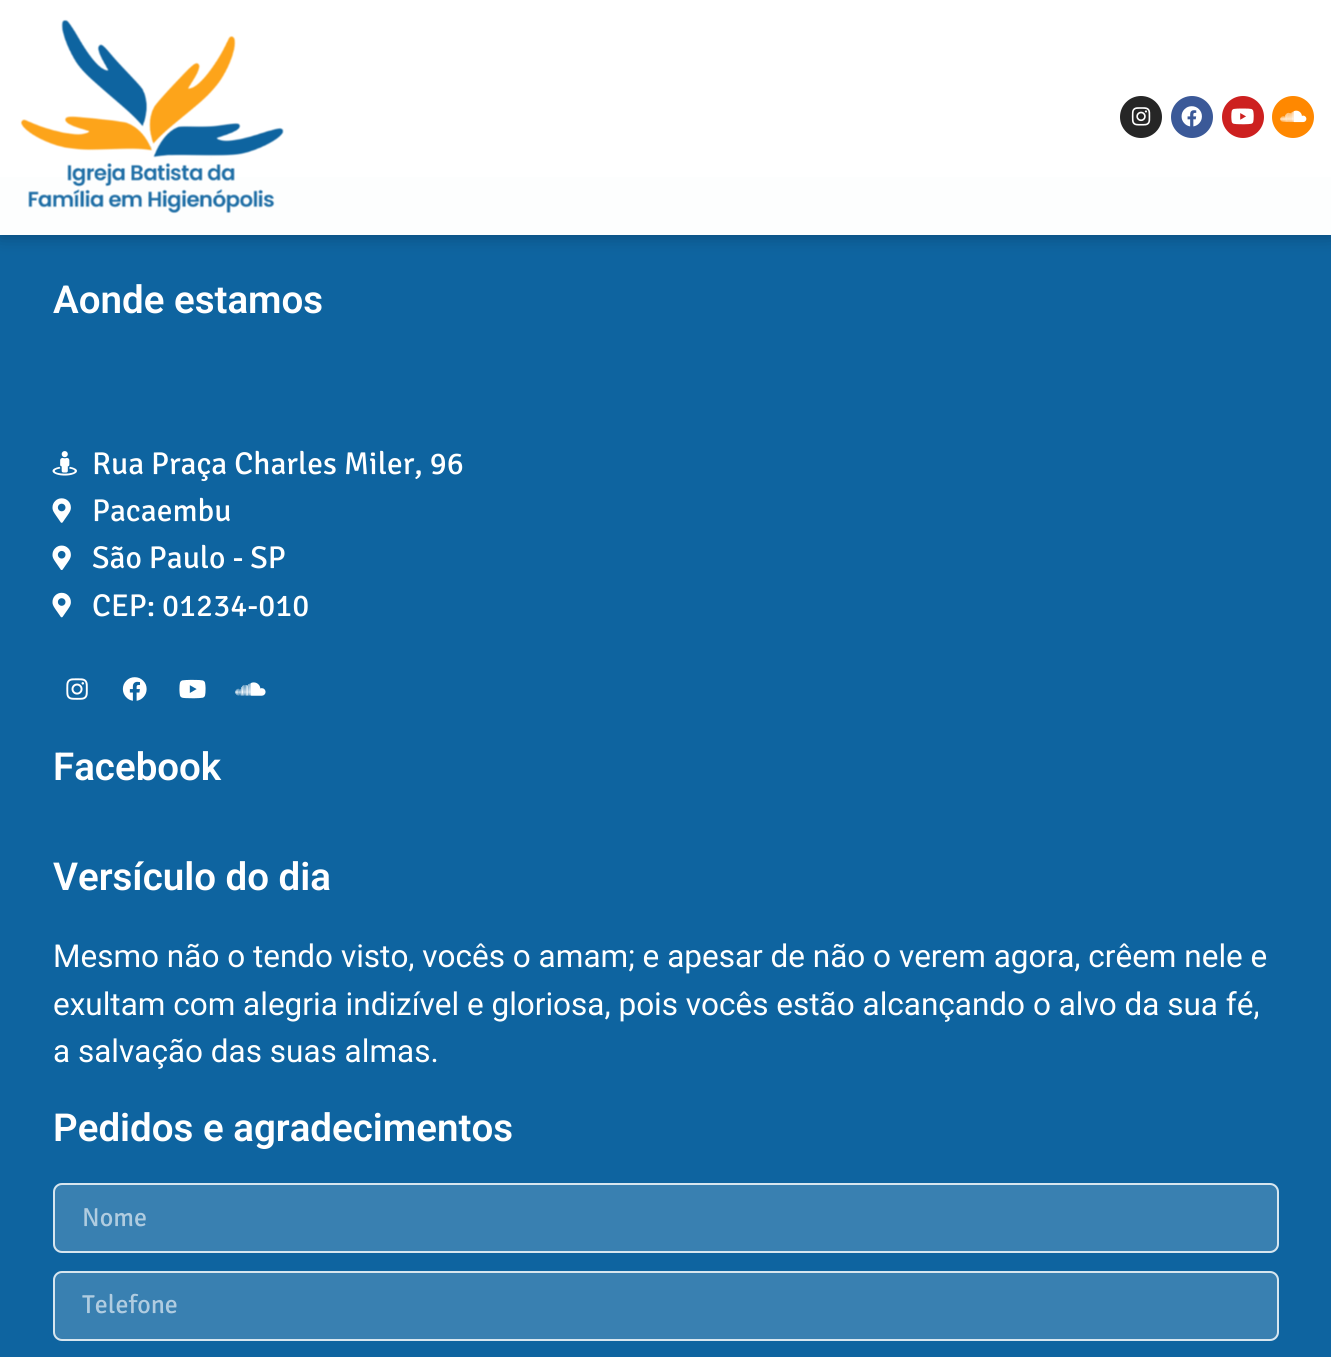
#include <cairo.h>
#include <math.h>
#include <stddef.h>

static cairo_t *c;
static void C(unsigned color){cairo_set_source_rgb(c, (color >> 16) / 255.0, (color >> 8 & 255) / 255.0, (color & 255) / 255.0);}
static void F(const char *family, double size, int italic, int bold){cairo_select_font_face(c, family, italic ? CAIRO_FONT_SLANT_ITALIC : CAIRO_FONT_SLANT_NORMAL,bold ? CAIRO_FONT_WEIGHT_BOLD : CAIRO_FONT_WEIGHT_NORMAL);cairo_set_font_size(c, size);}
static void T(double x, double y, const char *s){cairo_move_to(c, x, y);cairo_show_text(c, s);}
static void R(double x, double y, double w, double h){cairo_rectangle(c, x, y, w, h);cairo_fill(c);}
static void Q(double x, double y, double w, double h, double r){cairo_new_sub_path(c);cairo_arc(c, x + w - r, y + h - r, r, 0, M_PI / 2);cairo_arc(c, x + r, y + h - r, r, M_PI / 2, M_PI);cairo_arc(c, x + r, y + r, r, M_PI, 1.5 * M_PI);cairo_arc(c, x + w - r, y + r, r, 1.5 * M_PI, 2 * M_PI);cairo_close_path(c);}
static void S(double x, double y, double w, double h, double r, double blur, double alpha){cairo_push_group_with_content(c, CAIRO_CONTENT_ALPHA);cairo_set_operator(c, CAIRO_OPERATOR_SOURCE);for (int i = 15; i >= -15 && fmin(w, h) + blur * i / 3 > 0; i -= 2) {double e = blur * i / 6;cairo_set_source_rgba(c, 0, 0, 0, alpha * erfc((i - 1) / 8.5) / 2);Q(x - e, y - e, w + 2 * e, h + 2 * e, fmax(0, fmin(r + e + blur * .6, fmin(w, h) / 2 + e)));cairo_fill(c);}cairo_pattern_t *soft = cairo_pop_group(c);cairo_mask(c, soft);cairo_pattern_destroy(soft);}
static void I(const char *path, double x, double y, double w, double h){cairo_surface_t *image = cairo_image_surface_create_from_png(path);cairo_save(c);cairo_set_source_surface(c, image, x, y);cairo_rectangle(c, x, y, w, h);cairo_fill(c);cairo_restore(c);cairo_surface_destroy(image);}
int main(void) {
cairo_surface_t *surface = cairo_image_surface_create(CAIRO_FORMAT_RGB24, 1331, 1357);
c = cairo_create(surface);
cairo_font_options_t *options = cairo_font_options_create();
cairo_font_options_set_hint_metrics(options, CAIRO_HINT_METRICS_OFF);
cairo_font_options_set_hint_style(options, CAIRO_HINT_STYLE_NONE);
cairo_set_font_options(c, options);
cairo_set_miter_limit(c, 4);
C(0xffffff);
cairo_paint(c);
C(0x0e64a0);
R(0,177,1331,1180);
cairo_save(c);
cairo_set_fill_rule(c,CAIRO_FILL_RULE_EVEN_ODD);
cairo_new_path(c);
cairo_move_to(c,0,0);
cairo_line_to(c,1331,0);
cairo_line_to(c,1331,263);
cairo_line_to(c,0,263);
cairo_close_path(c);
cairo_move_to(c,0,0);
cairo_line_to(c,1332,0);
cairo_line_to(c,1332,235);
cairo_line_to(c,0,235);
cairo_close_path(c);
cairo_clip(c);
C(0x000000);
S(0,0,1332,235,0,9,.29);
cairo_restore(c);
cairo_set_source_rgba(c,1,1,1,0.99);
R(0,177,1331,58);
I("1.png",20,19,264,195);
C(0x262626);
cairo_arc(c,1141,117,21,0,2 * M_PI);
cairo_fill(c);
I("2.png",1131,107,20,19);
C(0x3b5998);
cairo_arc(c,1192,117,21,0,2 * M_PI);
cairo_fill(c);
I("3.png",1181,106,21,21);
C(0xcd201f);
cairo_arc(c,1243,117,21,0,2 * M_PI);
cairo_fill(c);
I("4.png",1231,108,23,17);
C(0xff8800);
cairo_arc(c,1293,117,21,0,2 * M_PI);
cairo_fill(c);
I("5.png",1280,110,27,13);
F("Roboto SemiBold",38.5,0,0);
C(0xffffff);
T(53,313,"Aonde estamos");
I("6.png",52,451,25,25);
F("Signika",31.5,0,0);
T(92,474,"Rua Praça Charles Miler, 96");
I("7.png",52,498,19,25);
T(92,521,"Pacaembu");
I("8.png",52,545,19,25);
T(92,568,"São Paulo - SP");
I("9.png",52,592,19,26);
T(92,616,"CEP: 01234-010");
I("10.png",66,678,22,22);
I("11.png",122,677,25,24);
I("12.png",179,679,27,20);
I("13.png",234,682,32,14);
F("Roboto SemiBold",38.5,0,0);
T(53,780,"Facebook");
T(53,890,"Versículo do dia");
F("Roboto",31.5,0,0);
T(53,967,"Mesmo não o tendo visto, vocês o amam; e apesar de não o verem agora, crêem nele e");
T(53,1015,"exultam com alegria indizível e gloriosa, pois vocês estão alcançando o alvo da sua fé,");
T(53,1062,"a salvação das suas almas.");
F("Roboto SemiBold",38.5,0,0);
T(53,1141,"Pedidos e agradecimentos");
C(0x3980b1);
Q(53,1183,1226,70,9);
cairo_fill(c);
Q(54,1184,1224,68,8);
cairo_set_source_rgba(c,1,1,1,0.8);
cairo_stroke(c);
F("Signika",26,0,0);
C(0xb0cce0);
T(82,1226,"Nome");
C(0x3980b1);
Q(53,1271,1226,70,9);
cairo_fill(c);
Q(54,1272,1224,68,8);
cairo_set_source_rgba(c,1,1,1,0.8);
cairo_stroke(c);
C(0xb0cce0);
T(82,1313,"Telefone");
cairo_surface_write_to_png(surface, "o.png");
cairo_font_options_destroy(options);
cairo_destroy(c);
cairo_surface_destroy(surface);
return 0;
}
